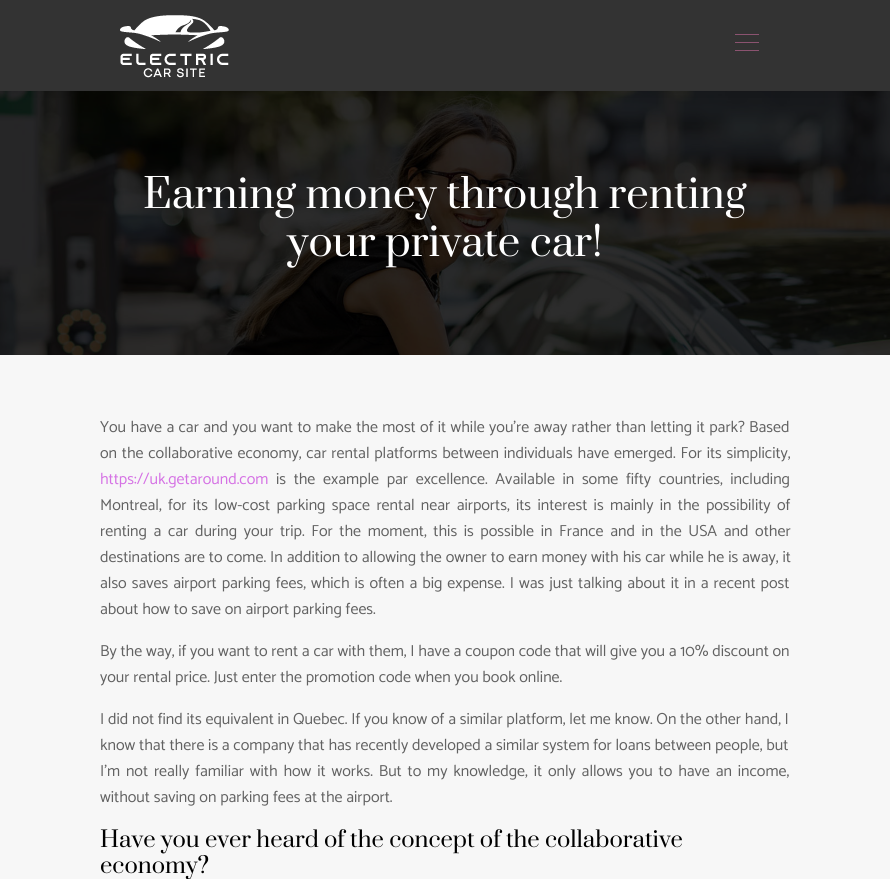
#include <cairo.h>
#include <math.h>
#include <stddef.h>

static cairo_t *c;
static void C(unsigned color){cairo_set_source_rgb(c, (color >> 16) / 255.0, (color >> 8 & 255) / 255.0, (color & 255) / 255.0);}
static void F(const char *family, double size, int italic, int bold){cairo_select_font_face(c, family, italic ? CAIRO_FONT_SLANT_ITALIC : CAIRO_FONT_SLANT_NORMAL,bold ? CAIRO_FONT_WEIGHT_BOLD : CAIRO_FONT_WEIGHT_NORMAL);cairo_set_font_size(c, size);}
static void T(double x, double y, const char *s){cairo_move_to(c, x, y);cairo_show_text(c, s);}
static void L(double x, double y, const char *s, double letter, double word){cairo_move_to(c, x, y);while (*s) {char ch[5] = {0};int n = 0;do ch[n++] = *s++; while ((*s & 0xC0) == 0x80);cairo_show_text(c, ch);cairo_rel_move_to(c, letter + word * (*ch == ' '), 0);}}
static void R(double x, double y, double w, double h){cairo_rectangle(c, x, y, w, h);cairo_fill(c);}
static void Q(double x, double y, double w, double h, double r){cairo_new_sub_path(c);cairo_arc(c, x + w - r, y + h - r, r, 0, M_PI / 2);cairo_arc(c, x + r, y + h - r, r, M_PI / 2, M_PI);cairo_arc(c, x + r, y + r, r, M_PI, 1.5 * M_PI);cairo_arc(c, x + w - r, y + r, r, 1.5 * M_PI, 2 * M_PI);cairo_close_path(c);}
static void S(double x, double y, double w, double h, double r, double blur, double alpha){cairo_push_group_with_content(c, CAIRO_CONTENT_ALPHA);cairo_set_operator(c, CAIRO_OPERATOR_SOURCE);for (int i = 15; i >= -15 && fmin(w, h) + blur * i / 3 > 0; i -= 2) {double e = blur * i / 6;cairo_set_source_rgba(c, 0, 0, 0, alpha * erfc((i - 1) / 8.5) / 2);Q(x - e, y - e, w + 2 * e, h + 2 * e, fmax(0, fmin(r + e + blur * .6, fmin(w, h) / 2 + e)));cairo_fill(c);}cairo_pattern_t *soft = cairo_pop_group(c);cairo_mask(c, soft);cairo_pattern_destroy(soft);}
static void I(const char *path, double x, double y, double w, double h){cairo_surface_t *image = cairo_image_surface_create_from_png(path);cairo_save(c);cairo_set_source_surface(c, image, x, y);cairo_rectangle(c, x, y, w, h);cairo_fill(c);cairo_restore(c);cairo_surface_destroy(image);}
int main(void) {
cairo_surface_t *surface = cairo_image_surface_create(CAIRO_FORMAT_RGB24, 890, 879);
c = cairo_create(surface);
cairo_font_options_t *options = cairo_font_options_create();
cairo_font_options_set_hint_metrics(options, CAIRO_HINT_METRICS_OFF);
cairo_font_options_set_hint_style(options, CAIRO_HINT_STYLE_NONE);
cairo_set_font_options(c, options);
cairo_set_miter_limit(c, 4);
C(0xf7f7f7);
cairo_paint(c);
I("2.png",0,91,890,264);
C(0x000000);
S(0,2,890,91,0,6.5,.1);
C(0x333333);
R(0,0,890,91);
I("1.png",120,15,109,63);
C(0x8b5370);
R(735,34,24,1);
R(735,42,24,1);
R(735,50,24,1);
F("Prata",40,0,0);
C(0xffffff);
T(143,208,"Earning money through renting");
T(287,256,"your private car!");
F("Catamaran",16,0,0);
C(0x626262);
L(100,432,"You have a car and you want to make the most of it while you’re away rather than letting it park? Based",0,.6);
L(100,458,"on the collaborative economy, car rental platforms between individuals have emerged. For its simplicity,",0,1);
C(0xd572e4);
T(100,484,"https://uk.getaround.com");
C(0x626262);
L(276,484,"is the example par excellence. Available in some fifty countries, including",0,3.9);
L(100,510,"Montreal, for its low-cost parking space rental near airports, its interest is mainly in the possibility of",0,2.6);
L(100,536,"renting a car during your trip. For the moment, this is possible in France and in the USA and other",0,2.9);
L(100,562,"destinations are to come. In addition to allowing the owner to earn money with his car while he is away, it",0,.2);
L(100,588,"also saves airport parking fees, which is often a big expense. I was just talking about it in a recent post",0,1.25);
T(100,614,"about how to save on airport parking fees.");
T(100,656,"By the way, if you want to rent a car with them, I have a coupon code that will give you a 10% discount on");
T(100,682,"your rental price. Just enter the promotion code when you book online.");
T(100,724,"I did not find its equivalent in Quebec. If you know of a similar platform, let me know. On the other hand, I");
T(100,750,"know that there is a company that has recently developed a similar system for loans between people, but");
L(100,776,"I’m not really familiar with how it works. But to my knowledge, it only allows you to have an income,",0,2.1);
T(100,802,"without saving on parking fees at the airport.");
F("Prata",22,0,0);
C(0x000000);
T(100,847,"Have you ever heard of the concept of the collaborative");
T(100,873,"economy?");
cairo_surface_write_to_png(surface, "o.png");
cairo_font_options_destroy(options);
cairo_destroy(c);
cairo_surface_destroy(surface);
return 0;
}
